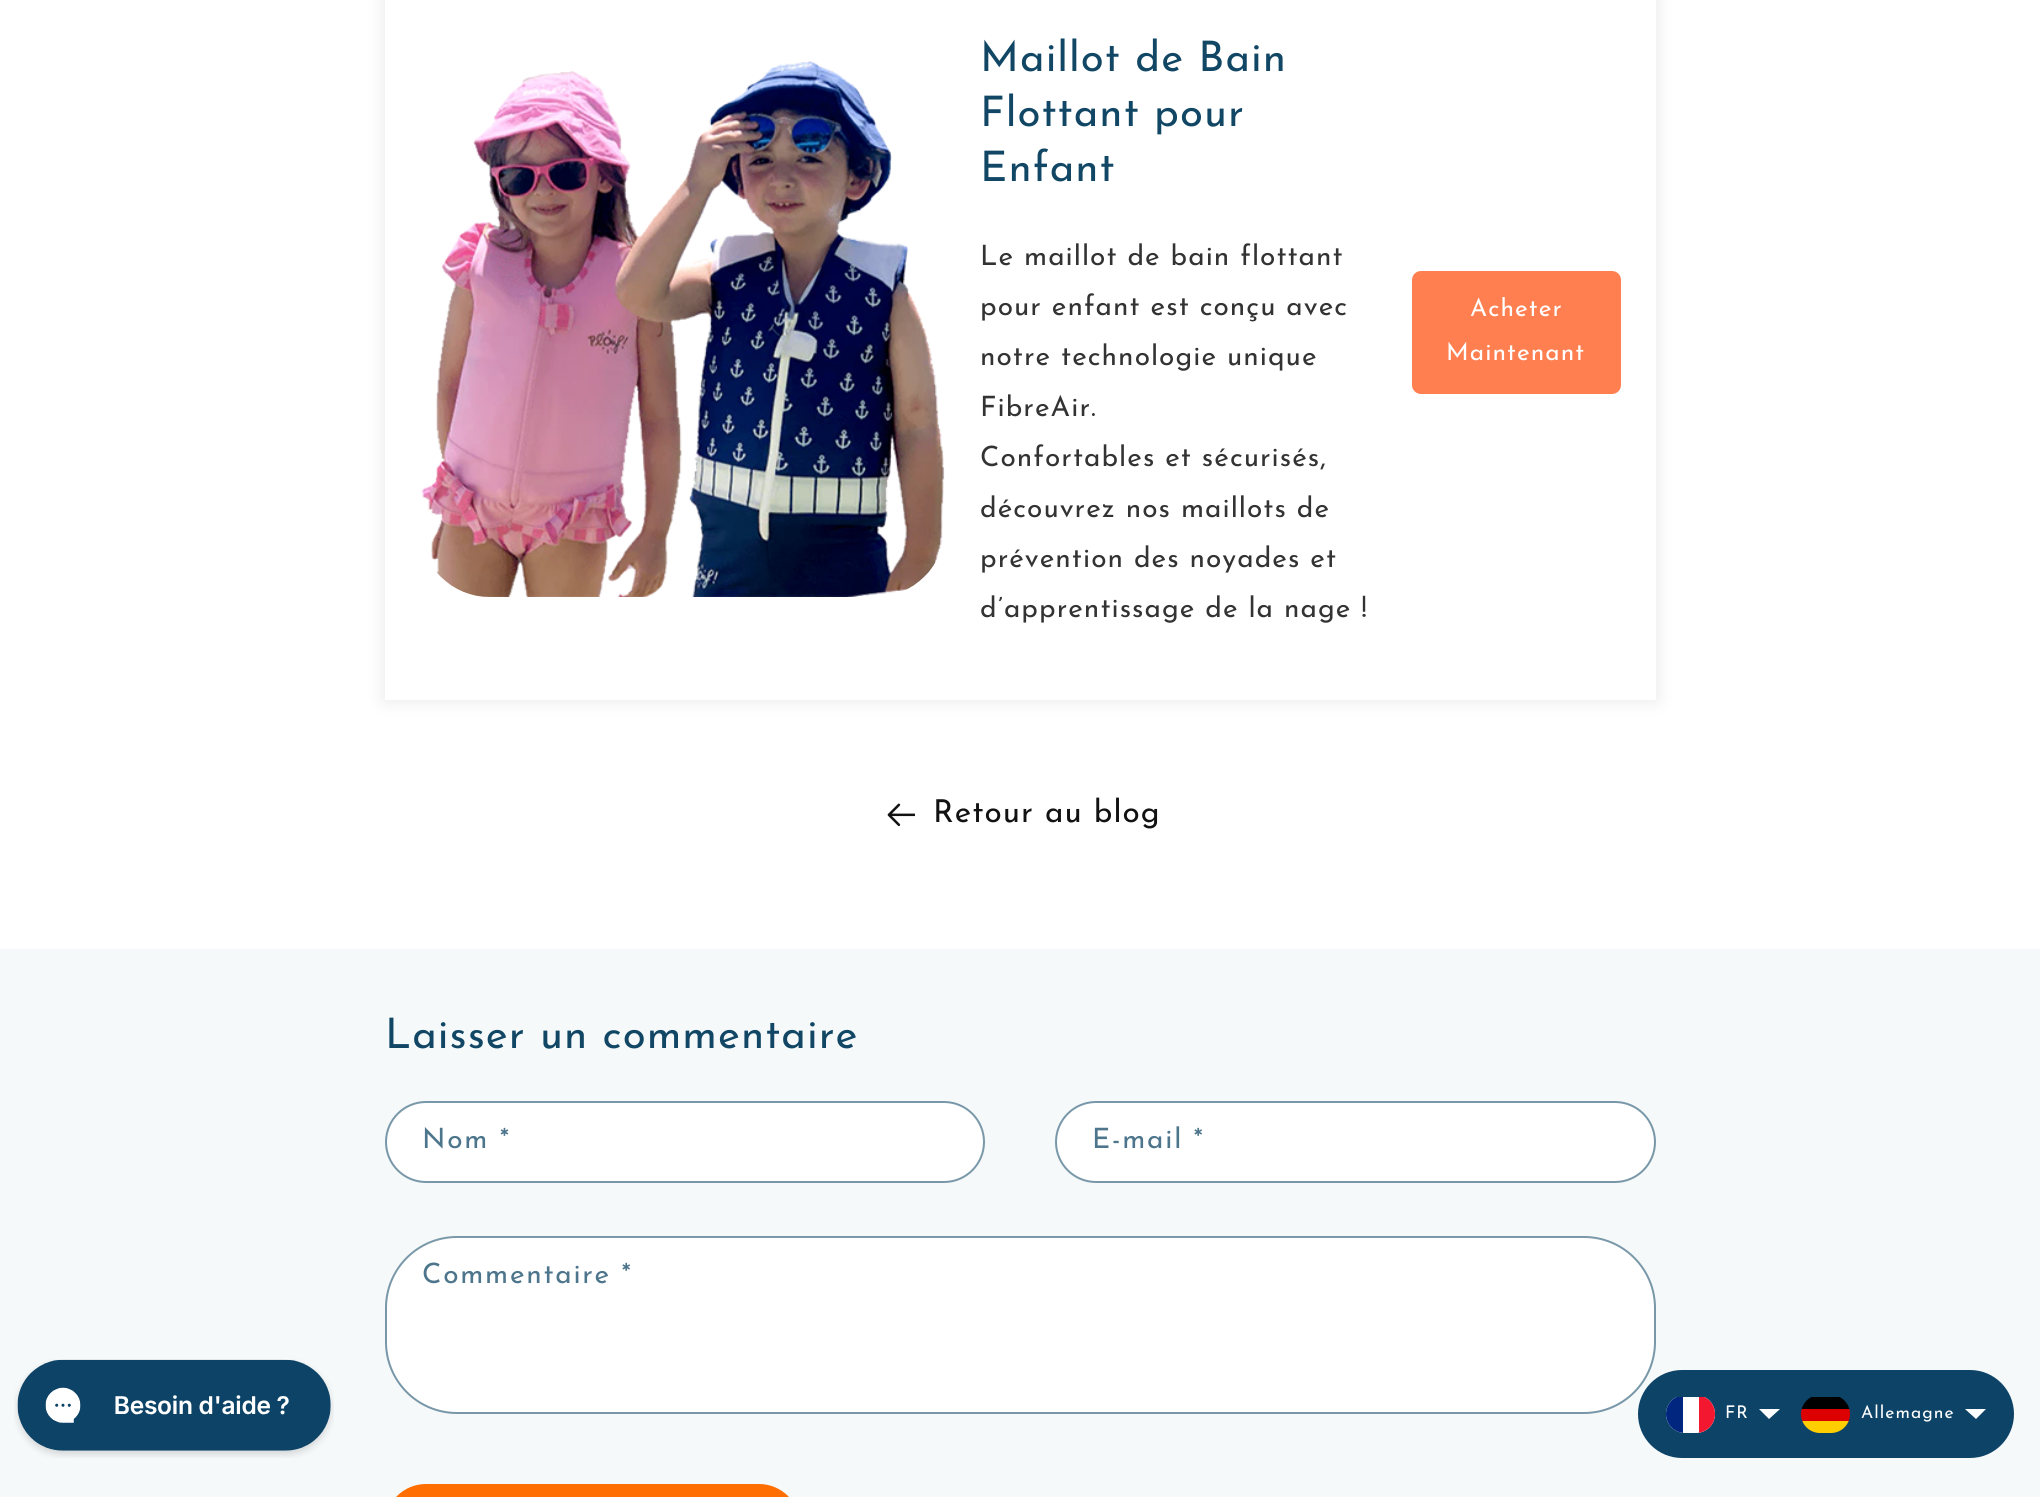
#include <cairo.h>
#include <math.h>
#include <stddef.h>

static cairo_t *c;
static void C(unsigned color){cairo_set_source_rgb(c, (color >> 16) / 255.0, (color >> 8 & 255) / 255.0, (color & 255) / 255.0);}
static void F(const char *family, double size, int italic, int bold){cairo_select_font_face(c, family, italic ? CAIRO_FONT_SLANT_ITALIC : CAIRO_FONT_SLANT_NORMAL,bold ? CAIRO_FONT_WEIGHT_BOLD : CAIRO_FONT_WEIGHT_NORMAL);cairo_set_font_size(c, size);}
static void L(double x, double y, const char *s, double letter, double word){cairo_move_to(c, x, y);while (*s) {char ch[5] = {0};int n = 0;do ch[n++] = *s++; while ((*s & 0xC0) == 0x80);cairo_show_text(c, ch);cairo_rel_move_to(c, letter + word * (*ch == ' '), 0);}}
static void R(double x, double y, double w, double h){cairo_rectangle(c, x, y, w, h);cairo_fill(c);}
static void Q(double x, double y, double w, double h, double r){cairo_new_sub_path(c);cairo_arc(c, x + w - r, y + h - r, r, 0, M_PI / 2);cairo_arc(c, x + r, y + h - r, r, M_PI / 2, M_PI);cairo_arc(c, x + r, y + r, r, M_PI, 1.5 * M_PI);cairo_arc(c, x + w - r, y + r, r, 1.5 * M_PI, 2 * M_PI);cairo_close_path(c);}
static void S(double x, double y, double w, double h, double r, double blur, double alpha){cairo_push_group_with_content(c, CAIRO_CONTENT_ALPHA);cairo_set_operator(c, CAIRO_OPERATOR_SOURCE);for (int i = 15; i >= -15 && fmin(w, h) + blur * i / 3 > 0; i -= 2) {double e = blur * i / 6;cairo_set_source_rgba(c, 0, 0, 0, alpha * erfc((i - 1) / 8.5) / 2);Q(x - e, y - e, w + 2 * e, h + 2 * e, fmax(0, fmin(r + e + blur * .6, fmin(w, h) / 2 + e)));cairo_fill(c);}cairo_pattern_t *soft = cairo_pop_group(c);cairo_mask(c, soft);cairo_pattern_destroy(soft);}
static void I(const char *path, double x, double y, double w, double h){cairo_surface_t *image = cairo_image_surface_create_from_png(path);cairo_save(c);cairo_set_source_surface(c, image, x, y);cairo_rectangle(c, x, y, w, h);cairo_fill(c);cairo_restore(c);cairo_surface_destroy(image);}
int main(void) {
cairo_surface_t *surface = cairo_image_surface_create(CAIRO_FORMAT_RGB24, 2040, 1497);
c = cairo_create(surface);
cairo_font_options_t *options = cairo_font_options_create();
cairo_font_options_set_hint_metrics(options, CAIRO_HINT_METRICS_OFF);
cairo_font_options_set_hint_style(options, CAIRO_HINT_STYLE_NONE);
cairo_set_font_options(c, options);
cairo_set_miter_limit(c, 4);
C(0xffffff);
cairo_paint(c);
C(0x000000);
S(385,-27,1271,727,0,9,.1);
C(0xffffff);
R(385,0,1271,700);
I("1.png",421,61,524,536);
F("Josefin Sans",42,0,0);
C(0x114765);
L(980,71,"Maillot de Bain",1.05,0);
L(980,126,"Flottant pour",1.05,0);
L(980,181,"Enfant",1.05,0);
F("Josefin Sans",28,0,0);
C(0x333333);
L(980,265,"Le maillot de bain flottant",1.05,0);
L(980,315,"pour enfant est conçu avec",1.05,0);
L(980,365,"notre technologie unique",1.05,0);
L(980,416,"FibreAir.",1.05,0);
L(980,466,"Confortables et sécurisés,",1.05,0);
L(980,517,"découvrez nos maillots de",1.05,0);
L(980,567,"prévention des noyades et",1.05,0);
L(980,617,"d’apprentissage de la nage !",1.05,0);
C(0xff7f50);
Q(1412,271,209,123,9);
cairo_fill(c);
F("Josefin Sans",24.5,0,0);
C(0xffffff);
L(1470,316,"Acheter",1.05,0);
L(1446,360,"Maintenant",1.05,0);
I("2.png",887,803,28,24);
F("Josefin Sans",31.5,0,0);
C(0x121212);
L(933,822,"Retour au blog",1.05,0);
C(0xf6f9fa);
R(0,949,2040,548);
F("Josefin Sans",42,0,0);
C(0x114765);
L(385,1048,"Laisser un commentaire",1.05,0);
C(0xffffff);
Q(387,1103,597,78,39);
cairo_fill(c);
Q(386,1102,598,80,40);
cairo_set_source_rgba(c,0.067,0.278,0.396,0.55);
cairo_stroke(c);
F("Josefin Sans",28,0,0);
C(0x4d758c);
L(422,1148,"Nom *",1.75,0);
C(0xffffff);
Q(1057,1103,597,78,39);
cairo_fill(c);
Q(1056,1102,599,80,40);
cairo_set_source_rgba(c,0.067,0.278,0.396,0.55);
cairo_stroke(c);
C(0x4d758c);
L(1092,1148,"E-mail *",1.75,0);
C(0xffffff);
Q(387,1237,1267,175,70);
cairo_fill(c);
Q(386,1237,1269,176,71);
cairo_set_source_rgba(c,0.067,0.278,0.396,0.55);
cairo_stroke(c);
C(0x4d758c);
L(422,1283,"Commentaire *",1.75,0);
C(0xff6e00);
Q(385,1484,415,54,41);
cairo_fill(c);
I("3.png",14,1359,320,99);
C(0x0d4367);
Q(1638,1370,376,88,44);
cairo_fill(c);
cairo_save(c);
Q(1666,1395,49,38,19);
cairo_clip(c);
C(0xffffff);
cairo_new_path(c);
cairo_move_to(c,1666,1397);
cairo_line_to(c,1715,1397);
cairo_line_to(c,1715,1414);
cairo_curve_to(c,1715,1424.5,1706.5,1433,1696,1433);
cairo_line_to(c,1685,1433);
cairo_curve_to(c,1674.5,1433,1666,1424.5,1666,1414);
cairo_close_path(c);
cairo_fill(c);
C(0x00267f);
R(1666,1397,17,36);
C(0xf31830);
R(1699,1397,16,36);
cairo_restore(c);
F("Josefin Sans",17.5,0,0);
C(0xffffff);
L(1725,1418,"FR",1.05,0);
cairo_new_path(c);
cairo_move_to(c,1759,1409);
cairo_line_to(c,1780,1409);
cairo_line_to(c,1769,1419);
cairo_close_path(c);
cairo_fill(c);
cairo_save(c);
Q(1801,1395,49,38,19);
cairo_clip(c);
C(0xffce00);
R(1802,1421,47,12);
C(0x000000);
R(1801,1397,49,12);
C(0xdd0000);
R(1801,1409,49,12);
cairo_restore(c);
L(1861,1418,"Allemagne",1.05,0);
cairo_new_path(c);
cairo_move_to(c,1965,1409);
cairo_line_to(c,1986,1409);
cairo_line_to(c,1976,1419);
cairo_close_path(c);
cairo_fill(c);
cairo_surface_write_to_png(surface, "o.png");
cairo_font_options_destroy(options);
cairo_destroy(c);
cairo_surface_destroy(surface);
return 0;
}
